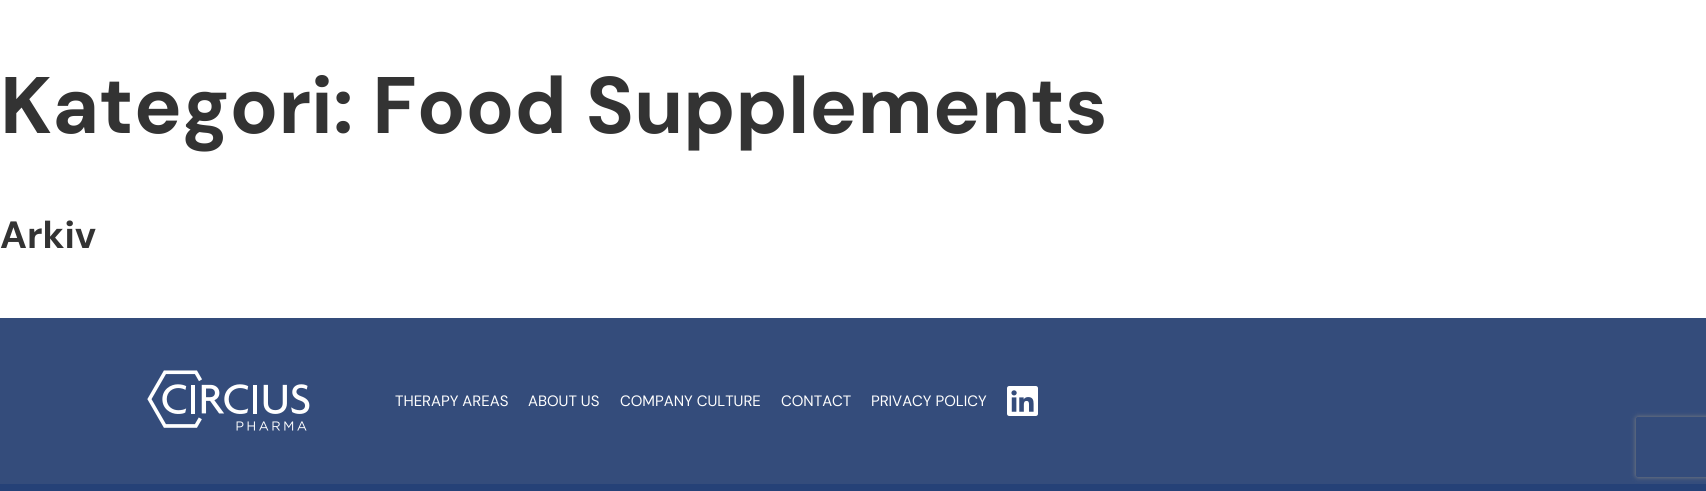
#include <cairo.h>
#include <math.h>
#include <stddef.h>

static cairo_t *c;
static void C(unsigned color){cairo_set_source_rgb(c, (color >> 16) / 255.0, (color >> 8 & 255) / 255.0, (color & 255) / 255.0);}
static void F(const char *family, double size, int italic, int bold){cairo_select_font_face(c, family, italic ? CAIRO_FONT_SLANT_ITALIC : CAIRO_FONT_SLANT_NORMAL,bold ? CAIRO_FONT_WEIGHT_BOLD : CAIRO_FONT_WEIGHT_NORMAL);cairo_set_font_size(c, size);}
static void T(double x, double y, const char *s){cairo_move_to(c, x, y);cairo_show_text(c, s);}
static void R(double x, double y, double w, double h){cairo_rectangle(c, x, y, w, h);cairo_fill(c);}
static void Q(double x, double y, double w, double h, double r){cairo_new_sub_path(c);cairo_arc(c, x + w - r, y + h - r, r, 0, M_PI / 2);cairo_arc(c, x + r, y + h - r, r, M_PI / 2, M_PI);cairo_arc(c, x + r, y + r, r, M_PI, 1.5 * M_PI);cairo_arc(c, x + w - r, y + r, r, 1.5 * M_PI, 2 * M_PI);cairo_close_path(c);}
static void S(double x, double y, double w, double h, double r, double blur, double alpha){cairo_push_group_with_content(c, CAIRO_CONTENT_ALPHA);cairo_set_operator(c, CAIRO_OPERATOR_SOURCE);for (int i = 15; i >= -15 && fmin(w, h) + blur * i / 3 > 0; i -= 2) {double e = blur * i / 6;cairo_set_source_rgba(c, 0, 0, 0, alpha * erfc((i - 1) / 8.5) / 2);Q(x - e, y - e, w + 2 * e, h + 2 * e, fmax(0, fmin(r + e + blur * .6, fmin(w, h) / 2 + e)));cairo_fill(c);}cairo_pattern_t *soft = cairo_pop_group(c);cairo_mask(c, soft);cairo_pattern_destroy(soft);}
static void I(const char *path, double x, double y, double w, double h){cairo_surface_t *image = cairo_image_surface_create_from_png(path);cairo_save(c);cairo_set_source_surface(c, image, x, y);cairo_rectangle(c, x, y, w, h);cairo_fill(c);cairo_restore(c);cairo_surface_destroy(image);}
int main(void) {
cairo_surface_t *surface = cairo_image_surface_create(CAIRO_FORMAT_RGB24, 1706, 491);
c = cairo_create(surface);
cairo_font_options_t *options = cairo_font_options_create();
cairo_font_options_set_hint_metrics(options, CAIRO_HINT_METRICS_OFF);
cairo_font_options_set_hint_style(options, CAIRO_HINT_STYLE_NONE);
cairo_set_font_options(c, options);
cairo_set_miter_limit(c, 4);
C(0xffffff);
cairo_paint(c);
F("DM Sans",80,0,1);
C(0x333333);
T(0,133,"Kategori: Food Supplements");
F("DM Sans",38,0,1);
T(0,248,"Arkiv");
C(0x344c7b);
R(0,318,1706,166);
I("1.png",147,370,163,61);
F("DM Sans",15,0,0);
C(0xfefefe);
T(395,406,"THERAPY AREAS");
T(528,406,"ABOUT US");
T(620,406,"COMPANY CULTURE");
T(781,406,"CONTACT");
T(871,406,"PRIVACY POLICY");
I("2.png",1007,386,31,30);
C(0x254177);
R(0,484,1706,7);
cairo_save(c);
cairo_set_fill_rule(c,CAIRO_FILL_RULE_EVEN_ODD);
cairo_new_path(c);
cairo_move_to(c,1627,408);
cairo_line_to(c,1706,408);
cairo_line_to(c,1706,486);
cairo_line_to(c,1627,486);
cairo_close_path(c);
cairo_move_to(c,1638,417);
cairo_line_to(c,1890,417);
cairo_curve_to(c,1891,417,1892,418,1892,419);
cairo_line_to(c,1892,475);
cairo_curve_to(c,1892,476,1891,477,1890,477);
cairo_line_to(c,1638,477);
cairo_curve_to(c,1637,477,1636,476,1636,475);
cairo_line_to(c,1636,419);
cairo_curve_to(c,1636,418,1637,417,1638,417);
cairo_close_path(c);
cairo_clip(c);
C(0x808080);
S(1636,417,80,60,2,2.5,1);
cairo_restore(c);
cairo_surface_write_to_png(surface, "o.png");
cairo_font_options_destroy(options);
cairo_destroy(c);
cairo_surface_destroy(surface);
return 0;
}
